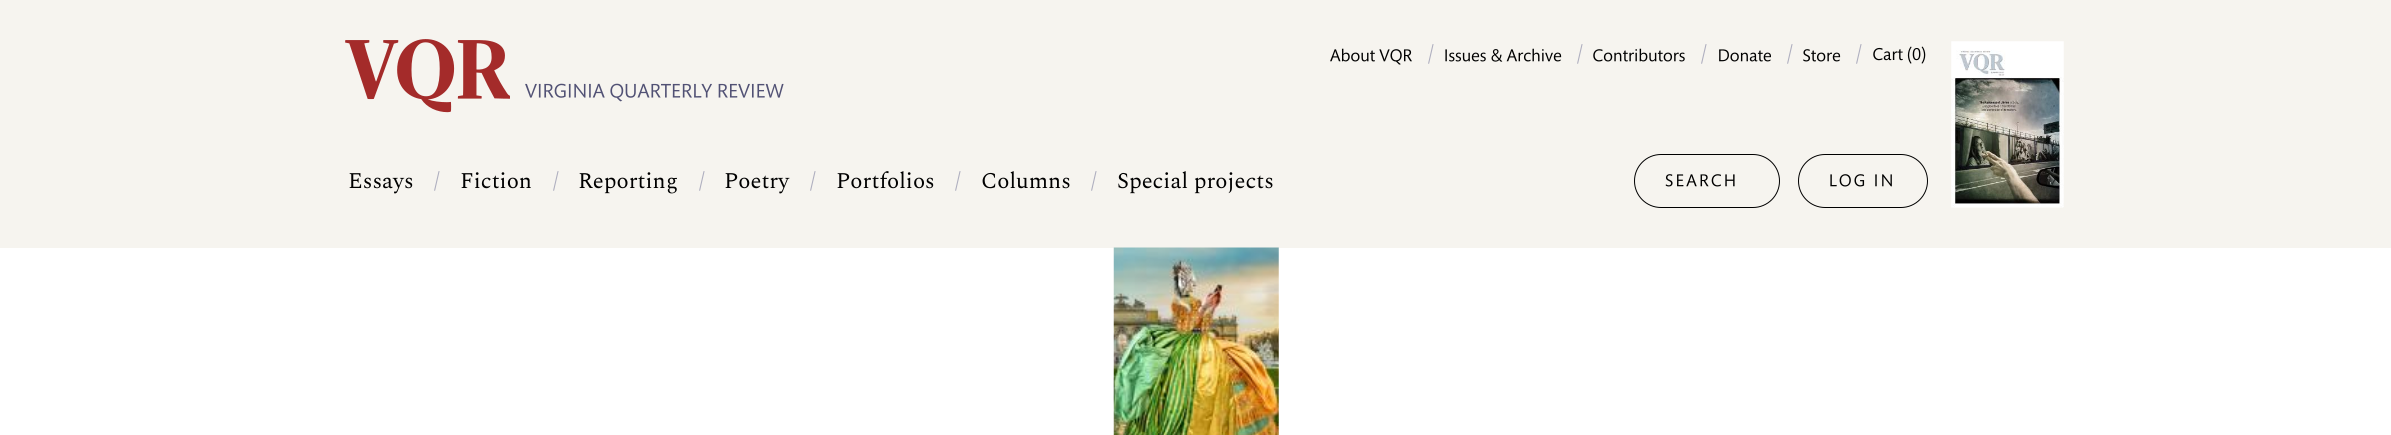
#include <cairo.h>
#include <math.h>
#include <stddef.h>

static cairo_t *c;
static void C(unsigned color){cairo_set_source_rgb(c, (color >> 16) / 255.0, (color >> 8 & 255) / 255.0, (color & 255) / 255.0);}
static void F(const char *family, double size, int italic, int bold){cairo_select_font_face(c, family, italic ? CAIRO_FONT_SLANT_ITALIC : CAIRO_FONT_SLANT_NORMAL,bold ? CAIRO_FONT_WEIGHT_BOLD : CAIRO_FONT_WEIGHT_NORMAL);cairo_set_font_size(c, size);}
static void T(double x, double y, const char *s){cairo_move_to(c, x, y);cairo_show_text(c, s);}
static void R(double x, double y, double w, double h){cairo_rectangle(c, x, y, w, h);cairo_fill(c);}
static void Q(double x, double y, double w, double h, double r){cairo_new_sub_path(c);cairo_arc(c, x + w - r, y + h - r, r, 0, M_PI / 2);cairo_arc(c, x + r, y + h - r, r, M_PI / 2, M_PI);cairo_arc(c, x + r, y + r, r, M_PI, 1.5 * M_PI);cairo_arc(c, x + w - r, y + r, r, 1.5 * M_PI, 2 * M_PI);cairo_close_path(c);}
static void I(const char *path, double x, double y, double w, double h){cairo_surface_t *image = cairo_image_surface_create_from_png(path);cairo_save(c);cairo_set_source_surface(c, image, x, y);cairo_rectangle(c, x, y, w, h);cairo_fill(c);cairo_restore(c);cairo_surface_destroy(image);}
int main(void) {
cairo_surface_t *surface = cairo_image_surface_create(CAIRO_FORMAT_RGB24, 2391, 435);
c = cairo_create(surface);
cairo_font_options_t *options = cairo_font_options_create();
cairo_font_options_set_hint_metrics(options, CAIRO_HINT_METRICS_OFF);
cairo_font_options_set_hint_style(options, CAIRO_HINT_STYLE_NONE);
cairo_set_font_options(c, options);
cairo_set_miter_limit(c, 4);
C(0xffffff);
cairo_paint(c);
C(0xf6f4ef);
R(0,0,2391,248);
I("1.png",345,39,165,74);
I("2.png",525,83,259,19);
I("3.png",1330,48,82,17);
F("Spectral",22.5,0,0);
C(0xafafbf);
T(1428,61,"/");
I("4.png",1445,48,117,14);
T(1577,61,"/");
I("5.png",1593,48,92,14);
T(1701,61,"/");
I("6.png",1719,49,52,13);
T(1787,61,"/");
I("7.png",1803,49,38,13);
T(1856,61,"/");
I("8.png",1873,46,53,18);
C(0x000000);
T(348,188,"Essays");
C(0xafafbf);
T(434,188,"/");
C(0x000000);
T(460,188,"Fiction");
C(0xafafbf);
T(553,188,"/");
C(0x000000);
T(578,188,"Reporting");
C(0xafafbf);
T(699,188,"/");
C(0x000000);
T(724,188,"Poetry");
C(0xafafbf);
T(810,188,"/");
C(0x000000);
T(836,188,"Portfolios");
C(0xafafbf);
T(955,188,"/");
C(0x000000);
T(981,188,"Columns");
C(0xafafbf);
T(1091,188,"/");
C(0x000000);
T(1117,188,"Special projects");
I("9.png",1665,174,70,13);
Q(1634.5,154.5,145,53,26.5);
cairo_set_line_width(c,1);
cairo_stroke(c);
I("10.png",1830,174,62,13);
Q(1798.5,154.5,129,53,26.5);
cairo_stroke(c);
I("11.png",1951,41,113,167);
I("12.png",1113,247,166,188);
cairo_surface_write_to_png(surface, "o.png");
cairo_font_options_destroy(options);
cairo_destroy(c);
cairo_surface_destroy(surface);
return 0;
}
